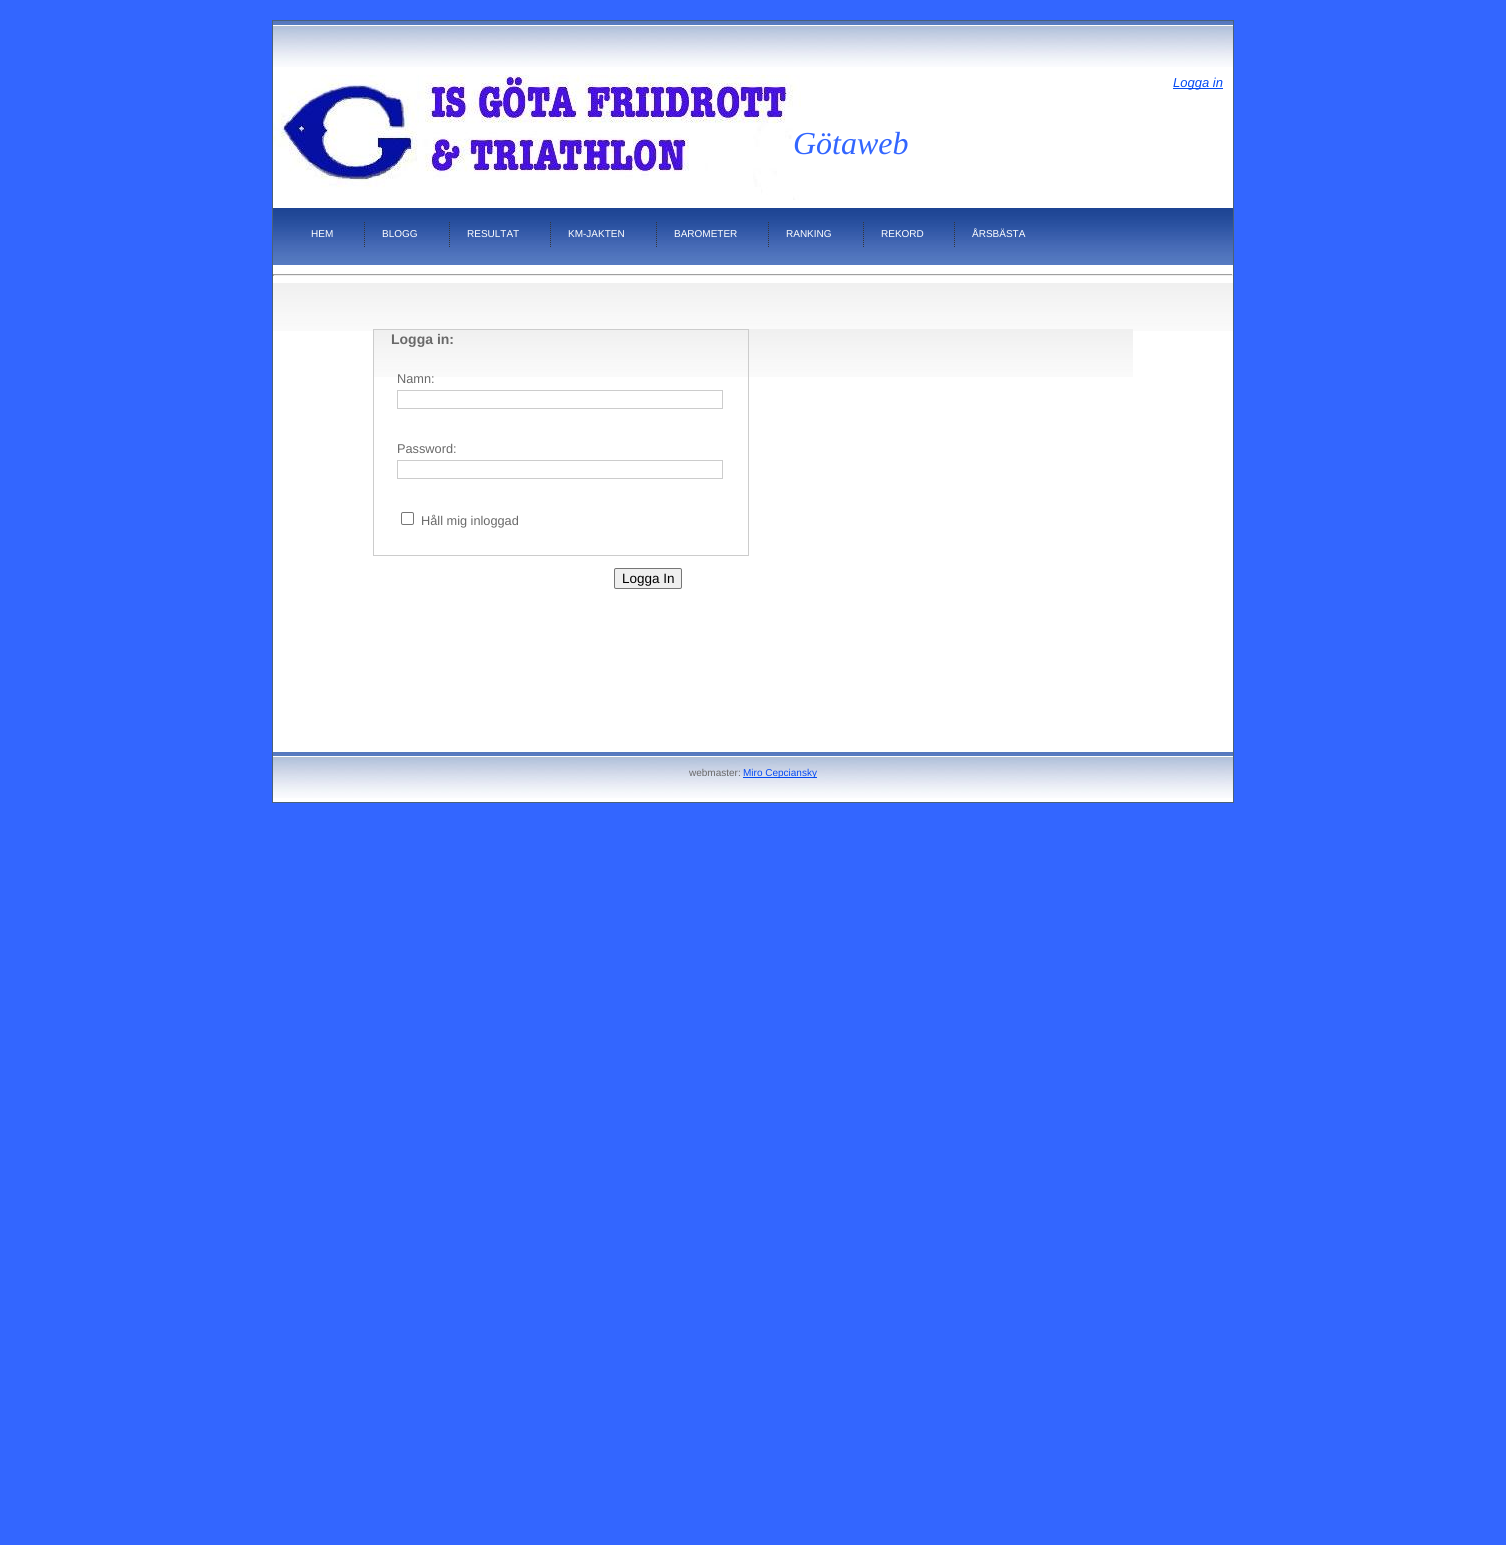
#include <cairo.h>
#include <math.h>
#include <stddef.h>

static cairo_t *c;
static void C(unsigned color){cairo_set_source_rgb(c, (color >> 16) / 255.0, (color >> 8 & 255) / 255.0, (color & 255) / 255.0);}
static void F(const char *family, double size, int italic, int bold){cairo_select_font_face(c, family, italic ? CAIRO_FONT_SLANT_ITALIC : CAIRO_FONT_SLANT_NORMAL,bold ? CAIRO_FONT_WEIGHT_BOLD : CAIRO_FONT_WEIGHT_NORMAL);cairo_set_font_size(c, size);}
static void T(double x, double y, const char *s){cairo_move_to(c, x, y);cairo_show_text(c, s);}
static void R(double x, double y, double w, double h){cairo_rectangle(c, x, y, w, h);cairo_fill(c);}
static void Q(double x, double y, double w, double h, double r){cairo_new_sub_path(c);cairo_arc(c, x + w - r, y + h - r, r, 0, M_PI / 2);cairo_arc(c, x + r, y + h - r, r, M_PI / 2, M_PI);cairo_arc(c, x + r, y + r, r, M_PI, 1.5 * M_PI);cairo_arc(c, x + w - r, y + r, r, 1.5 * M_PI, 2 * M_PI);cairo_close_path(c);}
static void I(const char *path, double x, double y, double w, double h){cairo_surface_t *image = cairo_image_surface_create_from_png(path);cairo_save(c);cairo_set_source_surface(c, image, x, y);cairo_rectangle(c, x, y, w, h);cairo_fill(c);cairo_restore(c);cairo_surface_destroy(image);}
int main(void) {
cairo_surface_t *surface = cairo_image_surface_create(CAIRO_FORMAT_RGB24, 1506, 1545);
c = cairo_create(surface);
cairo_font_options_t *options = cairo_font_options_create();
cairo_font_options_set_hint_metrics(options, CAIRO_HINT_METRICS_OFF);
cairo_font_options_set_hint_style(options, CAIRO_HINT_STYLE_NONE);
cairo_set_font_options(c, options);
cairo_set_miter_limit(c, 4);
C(0x3366ff);
cairo_paint(c);
C(0xffffff);
R(273,67,960,735);
cairo_rectangle(c,272.5,20.5,961,782);
C(0x496077);
cairo_set_line_width(c,1);
cairo_stroke(c);
I("1.png",273,21,960,46);
I("2.png",273,75,528,125);
C(0x034af3);
R(1173,88,50,1);
F("Liberation Sans",13,1,0);
T(1173,87,"Logga in");
F("Liberation Serif",32,1,0);
C(0x3366ff);
T(793,154,"Götaweb");
I("3.png",273,208,960,57);
F("Liberation Sans",10,0,0);
C(0xffffff);
T(311,237,"HEM");
I("4.png",364,222,1,25);
T(382,237,"BLOGG");
I("4.png",449,222,1,25);
T(467,237,"RESULTAT");
I("4.png",550,222,1,25);
T(568,237,"KM-JAKTEN");
I("4.png",656,222,1,25);
T(674,237,"BAROMETER");
I("4.png",768,222,1,25);
T(786,237,"RANKING");
I("4.png",863,222,1,25);
T(881,237,"REKORD");
I("4.png",954,222,1,25);
T(972,237,"ÅRSBÄSTA");
C(0x9f9f9f);
R(273,274,960,1);
C(0xeeeeee);
R(1232,274,1,2);
R(273,275,960,1);
C(0x9f9f9f);
R(273,274,1,2);
I("5.png",273,283,960,48);
I("6.png",374,329,759,48);
cairo_rectangle(c,373.5,329.5,375,226);
C(0xcccccc);
cairo_stroke(c);
F("Liberation Sans",14,0,1);
C(0x696969);
T(391,344,"Logga in:");
F("Liberation Sans",12.75,0,0);
T(397,383,"Namn:");
cairo_rectangle(c,397.5,390.5,325,18);
C(0xcccccc);
cairo_stroke(c);
C(0x696969);
T(397,453,"Password:");
cairo_rectangle(c,397.5,460.5,325,18);
C(0xcccccc);
cairo_stroke(c);
Q(401.5,512.5,12,12,1.5);
C(0x767676);
cairo_stroke(c);
C(0x696969);
T(421,525,"Håll mig inloggad");
C(0xefefef);
Q(614.5,568.5,67,20,1.5);
cairo_fill_preserve(c);
C(0x767676);
cairo_stroke(c);
F("Liberation Sans",13.5,0,0);
C(0x000000);
T(622,583,"Logga In");
I("1.png",273,752,960,46);
F("Liberation Sans",10,0,0);
C(0x696969);
T(689,776,"webmaster:");
C(0x034af3);
R(743,777,74,1);
T(743,776,"Miro Cepciansky");
cairo_surface_write_to_png(surface, "o.png");
cairo_font_options_destroy(options);
cairo_destroy(c);
cairo_surface_destroy(surface);
return 0;
}
